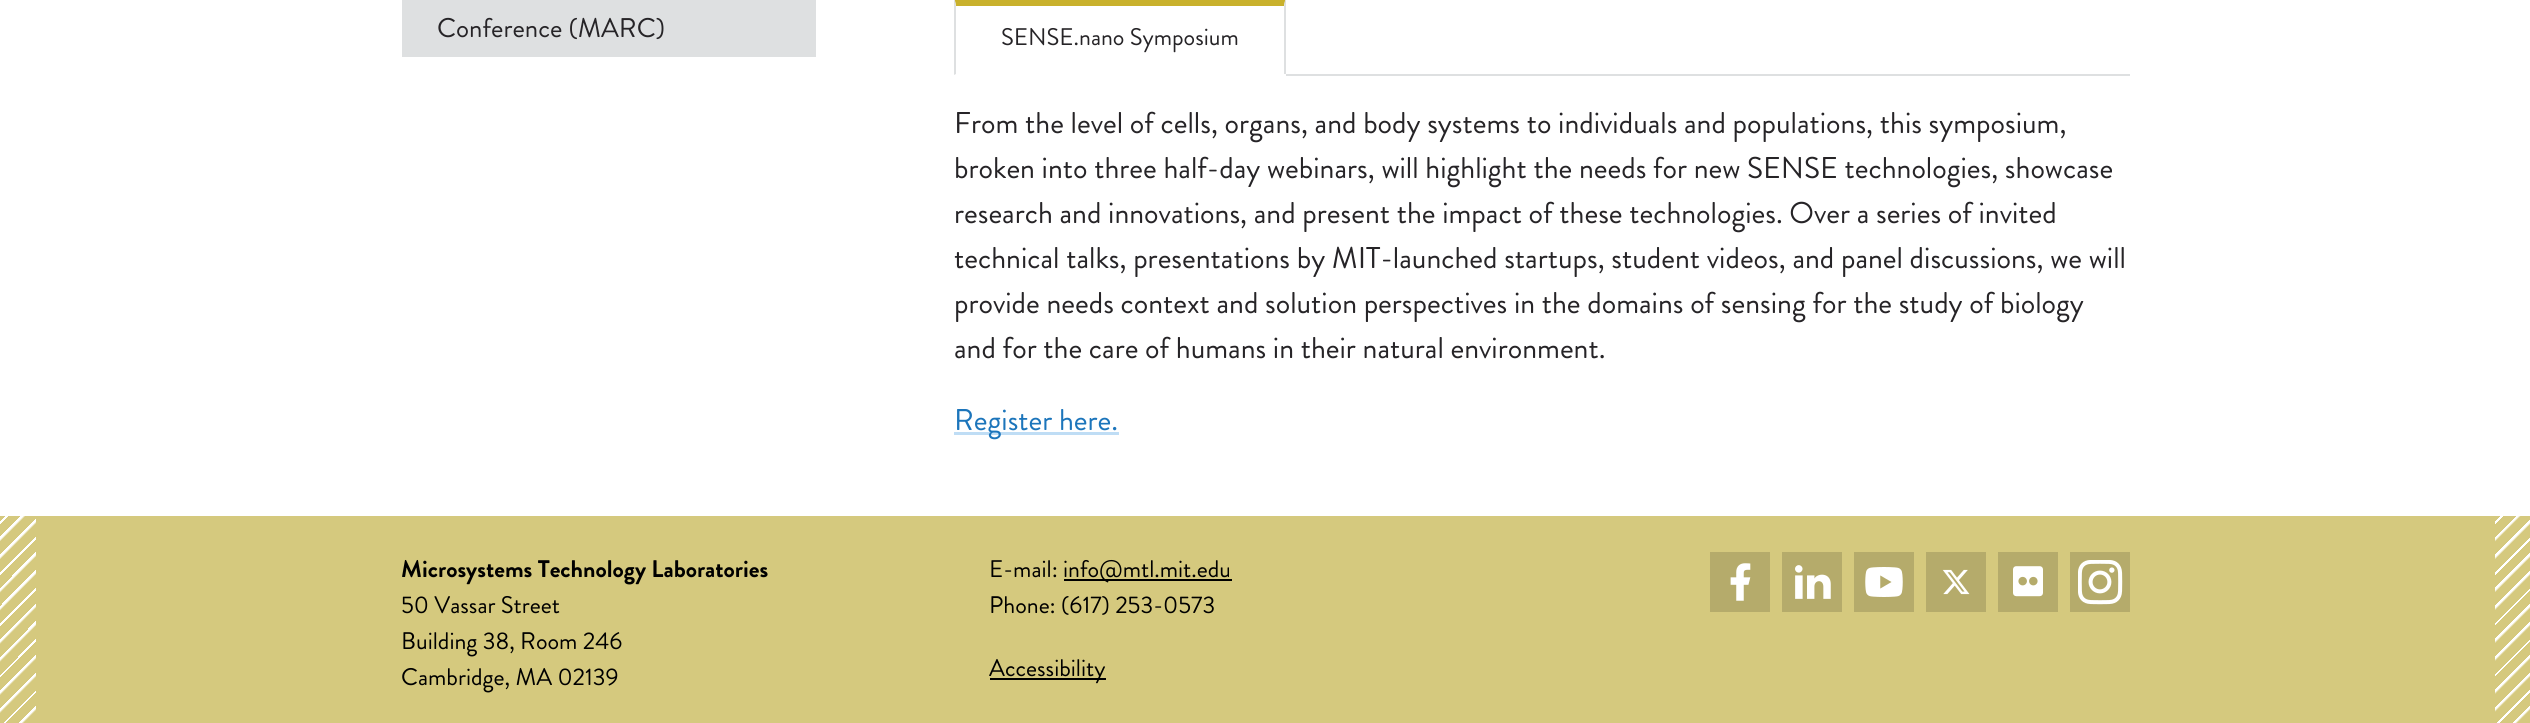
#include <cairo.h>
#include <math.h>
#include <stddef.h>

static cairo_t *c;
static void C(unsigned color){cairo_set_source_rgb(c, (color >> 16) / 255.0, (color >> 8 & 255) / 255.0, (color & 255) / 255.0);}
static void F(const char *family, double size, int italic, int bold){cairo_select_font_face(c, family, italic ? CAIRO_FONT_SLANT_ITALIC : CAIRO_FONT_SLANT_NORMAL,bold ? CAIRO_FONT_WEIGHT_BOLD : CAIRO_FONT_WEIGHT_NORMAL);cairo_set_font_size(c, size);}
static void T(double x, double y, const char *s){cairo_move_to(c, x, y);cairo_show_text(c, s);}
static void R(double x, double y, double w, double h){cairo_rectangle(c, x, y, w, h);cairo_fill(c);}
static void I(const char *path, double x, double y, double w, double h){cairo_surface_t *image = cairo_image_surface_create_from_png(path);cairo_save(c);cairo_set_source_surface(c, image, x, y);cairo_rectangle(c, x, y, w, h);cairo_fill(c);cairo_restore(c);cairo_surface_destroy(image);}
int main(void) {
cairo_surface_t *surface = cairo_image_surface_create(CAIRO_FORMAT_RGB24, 2530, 723);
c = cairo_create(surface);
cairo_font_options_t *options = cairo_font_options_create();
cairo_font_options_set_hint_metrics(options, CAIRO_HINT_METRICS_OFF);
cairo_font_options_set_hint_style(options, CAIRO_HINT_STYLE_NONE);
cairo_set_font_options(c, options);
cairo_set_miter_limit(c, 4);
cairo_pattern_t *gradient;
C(0xffffff);
cairo_paint(c);
C(0xdee0e1);
R(402,0,414,57);
F("Brandon Grotesque",27,0,0);
C(0x262427);
T(437,37,"Conference (MARC)");
C(0xc9b12c);
cairo_new_path(c);
cairo_move_to(c,954,-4);
cairo_line_to(c,1286,-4);
cairo_line_to(c,1284,6);
cairo_line_to(c,956,6);
cairo_close_path(c);
cairo_fill(c);
C(0xdee0e1);
cairo_new_path(c);
cairo_move_to(c,1286,-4);
cairo_line_to(c,1286,75);
cairo_line_to(c,1284,74);
cairo_line_to(c,1284,6);
cairo_close_path(c);
cairo_fill(c);
C(0xffffff);
R(1284,74,2,1);
C(0xdee0e1);
cairo_new_path(c);
cairo_move_to(c,954,75);
cairo_line_to(c,954,-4);
cairo_line_to(c,956,6);
cairo_line_to(c,956,74);
cairo_close_path(c);
cairo_fill(c);
F("Brandon Grotesque",24,0,0);
C(0x262427);
T(1001,45,"SENSE.nano Symposium");
C(0xdee0e1);
R(1286,74,844,2);
F("Brandon Grotesque",30,0,0);
C(0x262427);
T(954,133,"From the level of cells, organs, and body systems to individuals and populations, this symposium,");
T(954,178,"broken into three half-day webinars, will highlight the needs for new SENSE technologies, showcase");
T(954,223,"research and innovations, and present the impact of these technologies. Over a series of invited");
T(954,268,"technical talks, presentations by MIT-launched startups, student videos, and panel discussions, we will");
T(954,313,"provide needs context and solution perspectives in the domains of sensing for the study of biology");
T(954,358,"and for the care of humans in their natural environment.");
C(0xbfddf5);
R(954,432,165,3);
C(0x1c75bb);
T(954,430,"Register here.");
C(0xd5c97e);
R(36,516,2459,207);
gradient = cairo_pattern_create_linear(79,680,-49,553);
cairo_pattern_add_color_stop_rgba(gradient,0,0.835,0.788,0.494,1);
cairo_pattern_add_color_stop_rgba(gradient,.05,0.835,0.788,0.494,1);
cairo_pattern_add_color_stop_rgba(gradient,.06,1,1,1,1);
cairo_pattern_add_color_stop_rgba(gradient,.07,1,1,1,1);
cairo_pattern_add_color_stop_rgba(gradient,.07,0.835,0.788,0.494,1);
cairo_pattern_add_color_stop_rgba(gradient,.12,0.835,0.788,0.494,1);
cairo_pattern_add_color_stop_rgba(gradient,.12,1,1,1,1);
cairo_pattern_add_color_stop_rgba(gradient,.13,1,1,1,1);
cairo_pattern_add_color_stop_rgba(gradient,.13,0.835,0.788,0.494,1);
cairo_pattern_add_color_stop_rgba(gradient,.18,0.835,0.788,0.494,1);
cairo_pattern_add_color_stop_rgba(gradient,.19,1,1,1,1);
cairo_pattern_add_color_stop_rgba(gradient,.2,1,1,1,1);
cairo_pattern_add_color_stop_rgba(gradient,.2,0.835,0.788,0.494,1);
cairo_pattern_add_color_stop_rgba(gradient,.25,0.835,0.788,0.494,1);
cairo_pattern_add_color_stop_rgba(gradient,.26,1,1,1,1);
cairo_pattern_add_color_stop_rgba(gradient,.27,1,1,1,1);
cairo_pattern_add_color_stop_rgba(gradient,.27,0.835,0.788,0.494,1);
cairo_pattern_add_color_stop_rgba(gradient,.32,0.835,0.788,0.494,1);
cairo_pattern_add_color_stop_rgba(gradient,.32,1,1,1,1);
cairo_pattern_add_color_stop_rgba(gradient,.33,1,1,1,1);
cairo_pattern_add_color_stop_rgba(gradient,.33,0.835,0.788,0.494,1);
cairo_pattern_add_color_stop_rgba(gradient,.38,0.835,0.788,0.494,1);
cairo_pattern_add_color_stop_rgba(gradient,.39,1,1,1,1);
cairo_pattern_add_color_stop_rgba(gradient,.4,1,1,1,1);
cairo_pattern_add_color_stop_rgba(gradient,.4,0.835,0.788,0.494,1);
cairo_pattern_add_color_stop_rgba(gradient,.45,0.835,0.788,0.494,1);
cairo_pattern_add_color_stop_rgba(gradient,.46,1,1,1,1);
cairo_pattern_add_color_stop_rgba(gradient,.47,1,1,1,1);
cairo_pattern_add_color_stop_rgba(gradient,.47,0.835,0.788,0.494,1);
cairo_pattern_add_color_stop_rgba(gradient,.52,0.835,0.788,0.494,1);
cairo_pattern_add_color_stop_rgba(gradient,.52,1,1,1,1);
cairo_pattern_add_color_stop_rgba(gradient,.53,1,1,1,1);
cairo_pattern_add_color_stop_rgba(gradient,.53,0.835,0.788,0.494,1);
cairo_pattern_add_color_stop_rgba(gradient,.58,0.835,0.788,0.494,1);
cairo_pattern_add_color_stop_rgba(gradient,.59,1,1,1,1);
cairo_pattern_add_color_stop_rgba(gradient,.6,1,1,1,1);
cairo_pattern_add_color_stop_rgba(gradient,.6,0.835,0.788,0.494,1);
cairo_pattern_add_color_stop_rgba(gradient,.65,0.835,0.788,0.494,1);
cairo_pattern_add_color_stop_rgba(gradient,.66,1,1,1,1);
cairo_pattern_add_color_stop_rgba(gradient,.67,1,1,1,1);
cairo_pattern_add_color_stop_rgba(gradient,.67,0.835,0.788,0.494,1);
cairo_pattern_add_color_stop_rgba(gradient,.72,0.835,0.788,0.494,1);
cairo_pattern_add_color_stop_rgba(gradient,.72,1,1,1,1);
cairo_pattern_add_color_stop_rgba(gradient,.73,1,1,1,1);
cairo_pattern_add_color_stop_rgba(gradient,.73,0.835,0.788,0.494,1);
cairo_pattern_add_color_stop_rgba(gradient,.78,0.835,0.788,0.494,1);
cairo_pattern_add_color_stop_rgba(gradient,.79,1,1,1,1);
cairo_pattern_add_color_stop_rgba(gradient,.8,1,1,1,1);
cairo_pattern_add_color_stop_rgba(gradient,.8,0.835,0.788,0.494,1);
cairo_pattern_add_color_stop_rgba(gradient,.85,0.835,0.788,0.494,1);
cairo_pattern_add_color_stop_rgba(gradient,.86,1,1,1,1);
cairo_pattern_add_color_stop_rgba(gradient,.87,1,1,1,1);
cairo_pattern_add_color_stop_rgba(gradient,.87,0.835,0.788,0.494,1);
cairo_pattern_add_color_stop_rgba(gradient,.92,0.835,0.788,0.494,1);
cairo_pattern_add_color_stop_rgba(gradient,.92,1,1,1,1);
cairo_pattern_add_color_stop_rgba(gradient,.93,1,1,1,1);
cairo_pattern_add_color_stop_rgba(gradient,.93,0.835,0.788,0.494,1);
cairo_pattern_add_color_stop_rgba(gradient,.98,0.835,0.788,0.494,1);
cairo_pattern_add_color_stop_rgba(gradient,.99,1,1,1,1);
cairo_pattern_add_color_stop_rgba(gradient,1,1,1,1,1);
cairo_set_source(c,gradient);
cairo_pattern_destroy(gradient);
R(0,516,36,207);
F("Brandon Grotesque",24,0,1);
C(0x000000);
T(401,577,"Microsystems Technology Laboratories");
F("Brandon Grotesque",24,0,0);
T(401,613,"50 Vassar Street");
T(401,649,"Building 38, Room 246");
T(401,685,"Cambridge, MA 02139");
T(989,577,"E-mail:");
R(1064,579,168,2);
T(1063,577,"info@mtl.mit.edu");
T(989,613,"Phone: (617) 253-0573");
R(990,678,116,2);
T(989,676,"Accessibility");
C(0xb5ab6b);
R(1710,552,60,60);
I("1.png",1730,563,21,38);
R(1782,552,60,60);
I("2.png",1795,565,36,34);
R(1854,552,60,60);
I("3.png",1865,567,38,30);
R(1926,552,60,60);
I("4.png",1942,569,28,26);
R(1998,552,60,60);
I("5.png",2013,566,30,31);
R(2070,552,60,60);
I("6.png",2078,560,45,45);
gradient = cairo_pattern_create_linear(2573,680,2446,553);
cairo_pattern_add_color_stop_rgba(gradient,0,0.835,0.788,0.494,1);
cairo_pattern_add_color_stop_rgba(gradient,.05,0.835,0.788,0.494,1);
cairo_pattern_add_color_stop_rgba(gradient,.06,1,1,1,1);
cairo_pattern_add_color_stop_rgba(gradient,.07,1,1,1,1);
cairo_pattern_add_color_stop_rgba(gradient,.07,0.835,0.788,0.494,1);
cairo_pattern_add_color_stop_rgba(gradient,.12,0.835,0.788,0.494,1);
cairo_pattern_add_color_stop_rgba(gradient,.12,1,1,1,1);
cairo_pattern_add_color_stop_rgba(gradient,.13,1,1,1,1);
cairo_pattern_add_color_stop_rgba(gradient,.13,0.835,0.788,0.494,1);
cairo_pattern_add_color_stop_rgba(gradient,.18,0.835,0.788,0.494,1);
cairo_pattern_add_color_stop_rgba(gradient,.19,1,1,1,1);
cairo_pattern_add_color_stop_rgba(gradient,.2,1,1,1,1);
cairo_pattern_add_color_stop_rgba(gradient,.2,0.835,0.788,0.494,1);
cairo_pattern_add_color_stop_rgba(gradient,.25,0.835,0.788,0.494,1);
cairo_pattern_add_color_stop_rgba(gradient,.26,1,1,1,1);
cairo_pattern_add_color_stop_rgba(gradient,.27,1,1,1,1);
cairo_pattern_add_color_stop_rgba(gradient,.27,0.835,0.788,0.494,1);
cairo_pattern_add_color_stop_rgba(gradient,.32,0.835,0.788,0.494,1);
cairo_pattern_add_color_stop_rgba(gradient,.32,1,1,1,1);
cairo_pattern_add_color_stop_rgba(gradient,.33,1,1,1,1);
cairo_pattern_add_color_stop_rgba(gradient,.33,0.835,0.788,0.494,1);
cairo_pattern_add_color_stop_rgba(gradient,.38,0.835,0.788,0.494,1);
cairo_pattern_add_color_stop_rgba(gradient,.39,1,1,1,1);
cairo_pattern_add_color_stop_rgba(gradient,.4,1,1,1,1);
cairo_pattern_add_color_stop_rgba(gradient,.4,0.835,0.788,0.494,1);
cairo_pattern_add_color_stop_rgba(gradient,.45,0.835,0.788,0.494,1);
cairo_pattern_add_color_stop_rgba(gradient,.46,1,1,1,1);
cairo_pattern_add_color_stop_rgba(gradient,.47,1,1,1,1);
cairo_pattern_add_color_stop_rgba(gradient,.47,0.835,0.788,0.494,1);
cairo_pattern_add_color_stop_rgba(gradient,.52,0.835,0.788,0.494,1);
cairo_pattern_add_color_stop_rgba(gradient,.52,1,1,1,1);
cairo_pattern_add_color_stop_rgba(gradient,.53,1,1,1,1);
cairo_pattern_add_color_stop_rgba(gradient,.53,0.835,0.788,0.494,1);
cairo_pattern_add_color_stop_rgba(gradient,.58,0.835,0.788,0.494,1);
cairo_pattern_add_color_stop_rgba(gradient,.59,1,1,1,1);
cairo_pattern_add_color_stop_rgba(gradient,.6,1,1,1,1);
cairo_pattern_add_color_stop_rgba(gradient,.6,0.835,0.788,0.494,1);
cairo_pattern_add_color_stop_rgba(gradient,.65,0.835,0.788,0.494,1);
cairo_pattern_add_color_stop_rgba(gradient,.66,1,1,1,1);
cairo_pattern_add_color_stop_rgba(gradient,.67,1,1,1,1);
cairo_pattern_add_color_stop_rgba(gradient,.67,0.835,0.788,0.494,1);
cairo_pattern_add_color_stop_rgba(gradient,.72,0.835,0.788,0.494,1);
cairo_pattern_add_color_stop_rgba(gradient,.72,1,1,1,1);
cairo_pattern_add_color_stop_rgba(gradient,.73,1,1,1,1);
cairo_pattern_add_color_stop_rgba(gradient,.73,0.835,0.788,0.494,1);
cairo_pattern_add_color_stop_rgba(gradient,.78,0.835,0.788,0.494,1);
cairo_pattern_add_color_stop_rgba(gradient,.79,1,1,1,1);
cairo_pattern_add_color_stop_rgba(gradient,.8,1,1,1,1);
cairo_pattern_add_color_stop_rgba(gradient,.8,0.835,0.788,0.494,1);
cairo_pattern_add_color_stop_rgba(gradient,.85,0.835,0.788,0.494,1);
cairo_pattern_add_color_stop_rgba(gradient,.86,1,1,1,1);
cairo_pattern_add_color_stop_rgba(gradient,.87,1,1,1,1);
cairo_pattern_add_color_stop_rgba(gradient,.87,0.835,0.788,0.494,1);
cairo_pattern_add_color_stop_rgba(gradient,.92,0.835,0.788,0.494,1);
cairo_pattern_add_color_stop_rgba(gradient,.92,1,1,1,1);
cairo_pattern_add_color_stop_rgba(gradient,.93,1,1,1,1);
cairo_pattern_add_color_stop_rgba(gradient,.93,0.835,0.788,0.494,1);
cairo_pattern_add_color_stop_rgba(gradient,.98,0.835,0.788,0.494,1);
cairo_pattern_add_color_stop_rgba(gradient,.99,1,1,1,1);
cairo_pattern_add_color_stop_rgba(gradient,1,1,1,1,1);
cairo_set_source(c,gradient);
cairo_pattern_destroy(gradient);
R(2495,516,35,207);
cairo_surface_write_to_png(surface, "o.png");
cairo_font_options_destroy(options);
cairo_destroy(c);
cairo_surface_destroy(surface);
return 0;
}
